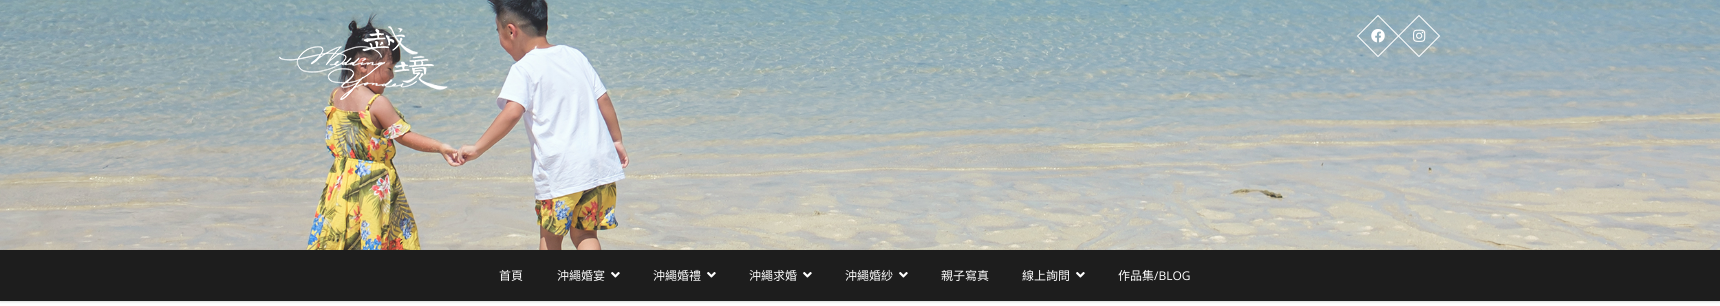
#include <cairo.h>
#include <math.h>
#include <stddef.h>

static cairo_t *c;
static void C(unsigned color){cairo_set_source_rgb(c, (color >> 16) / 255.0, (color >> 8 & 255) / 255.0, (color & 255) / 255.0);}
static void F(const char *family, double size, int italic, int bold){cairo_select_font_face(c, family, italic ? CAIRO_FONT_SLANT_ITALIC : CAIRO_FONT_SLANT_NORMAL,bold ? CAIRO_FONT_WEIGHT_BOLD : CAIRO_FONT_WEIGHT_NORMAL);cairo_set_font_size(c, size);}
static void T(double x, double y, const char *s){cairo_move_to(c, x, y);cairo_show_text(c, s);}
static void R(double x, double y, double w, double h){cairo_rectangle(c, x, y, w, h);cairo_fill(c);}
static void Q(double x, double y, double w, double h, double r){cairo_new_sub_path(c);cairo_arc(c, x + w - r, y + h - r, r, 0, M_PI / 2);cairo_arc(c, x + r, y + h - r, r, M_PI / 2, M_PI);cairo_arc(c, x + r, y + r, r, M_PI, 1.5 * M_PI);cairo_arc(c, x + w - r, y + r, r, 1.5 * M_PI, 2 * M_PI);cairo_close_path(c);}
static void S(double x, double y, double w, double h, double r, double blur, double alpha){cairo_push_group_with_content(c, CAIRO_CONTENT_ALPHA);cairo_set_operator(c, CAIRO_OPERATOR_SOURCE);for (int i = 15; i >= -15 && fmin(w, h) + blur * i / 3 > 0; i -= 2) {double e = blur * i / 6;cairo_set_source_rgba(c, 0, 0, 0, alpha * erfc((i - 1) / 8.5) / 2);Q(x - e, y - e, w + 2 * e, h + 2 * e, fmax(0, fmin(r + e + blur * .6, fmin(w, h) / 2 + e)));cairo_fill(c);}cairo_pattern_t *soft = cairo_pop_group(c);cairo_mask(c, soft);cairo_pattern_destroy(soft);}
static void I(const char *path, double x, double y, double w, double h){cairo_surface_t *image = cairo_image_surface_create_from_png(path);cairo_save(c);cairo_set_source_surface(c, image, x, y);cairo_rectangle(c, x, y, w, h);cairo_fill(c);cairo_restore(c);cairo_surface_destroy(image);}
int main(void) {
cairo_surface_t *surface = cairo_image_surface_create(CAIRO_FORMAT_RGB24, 1720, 306);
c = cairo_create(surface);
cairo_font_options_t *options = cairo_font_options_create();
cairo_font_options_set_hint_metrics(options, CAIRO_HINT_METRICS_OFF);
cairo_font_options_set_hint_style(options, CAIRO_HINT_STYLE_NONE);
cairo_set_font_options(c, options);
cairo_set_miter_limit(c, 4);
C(0xffffff);
cairo_paint(c);
I("1.png",0,0,1720,250);
I("2.png",279,26,169,74);
cairo_new_path(c);
cairo_move_to(c,1357.5,36);
cairo_line_to(c,1378,15.5);
cairo_line_to(c,1398.5,36);
cairo_line_to(c,1378,56.5);
cairo_close_path(c);
C(0xffffff);
cairo_set_line_width(c,1);
cairo_stroke(c);
I("3.png",1371,29,14,14);
cairo_new_path(c);
cairo_move_to(c,1398.5,36);
cairo_line_to(c,1419,15.5);
cairo_line_to(c,1439.5,36);
cairo_line_to(c,1419,56.5);
cairo_close_path(c);
cairo_stroke(c);
I("4.png",1413,29,13,13);
C(0x000000);
S(0,251,1720,51,0,1,.15);
C(0x1d1d1d);
R(0,250,1720,51);
F("Noto Sans CJK TC",12,0,0);
C(0xffffff);
T(499,280,"首頁");
T(557,280,"沖繩婚宴");
I("5.png",611,272,9,6);
T(653,280,"沖繩婚禮");
I("5.png",707,272,9,6);
T(749,280,"沖繩求婚");
I("5.png",803,272,9,6);
T(845,280,"沖繩婚紗");
I("5.png",899,272,9,6);
T(941,280,"親子寫真");
T(1022,280,"線上詢問");
I("5.png",1076,272,9,6);
T(1118,280,"作品集");
F("Open Sans",12,0,0);
T(1154,280,"/BLOG");
cairo_surface_write_to_png(surface, "o.png");
cairo_font_options_destroy(options);
cairo_destroy(c);
cairo_surface_destroy(surface);
return 0;
}
